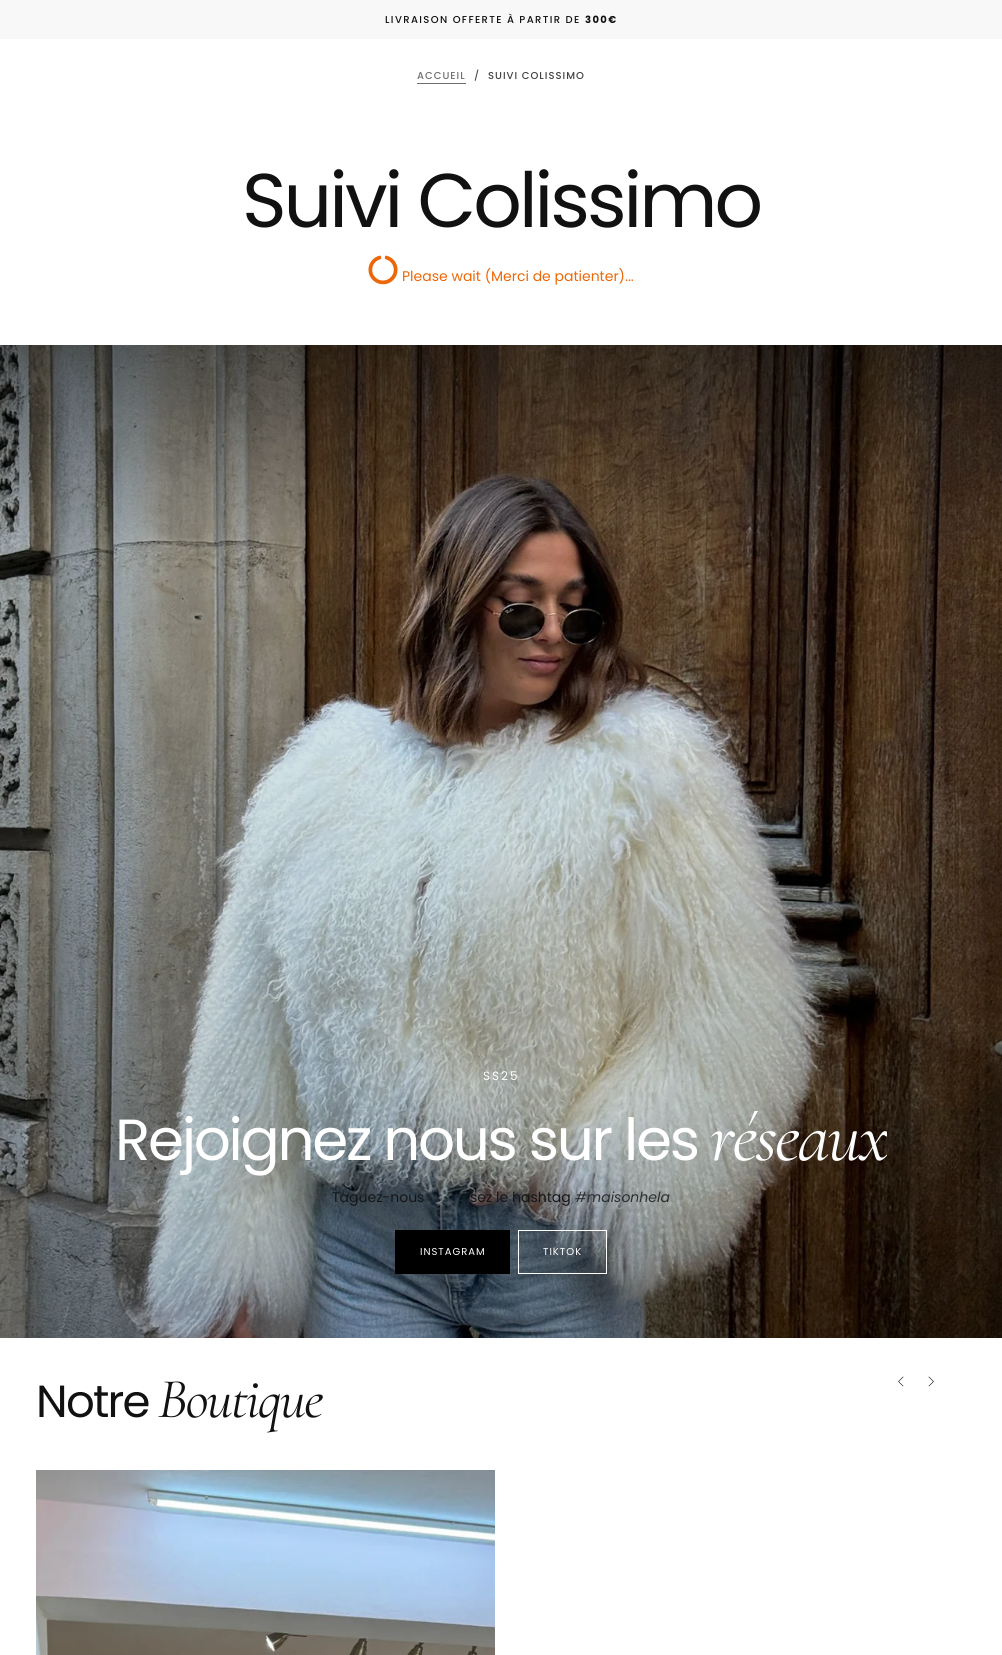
#include <cairo.h>
#include <math.h>
#include <stddef.h>

static cairo_t *c;
static void C(unsigned color){cairo_set_source_rgb(c, (color >> 16) / 255.0, (color >> 8 & 255) / 255.0, (color & 255) / 255.0);}
static void F(const char *family, double size, int italic, int bold){cairo_select_font_face(c, family, italic ? CAIRO_FONT_SLANT_ITALIC : CAIRO_FONT_SLANT_NORMAL,bold ? CAIRO_FONT_WEIGHT_BOLD : CAIRO_FONT_WEIGHT_NORMAL);cairo_set_font_size(c, size);}
static void T(double x, double y, const char *s){cairo_move_to(c, x, y);cairo_show_text(c, s);}
static void L(double x, double y, const char *s, double letter, double word){cairo_move_to(c, x, y);while (*s) {char ch[5] = {0};int n = 0;do ch[n++] = *s++; while ((*s & 0xC0) == 0x80);cairo_show_text(c, ch);cairo_rel_move_to(c, letter + word * (*ch == ' '), 0);}}
static void R(double x, double y, double w, double h){cairo_rectangle(c, x, y, w, h);cairo_fill(c);}
static void I(const char *path, double x, double y, double w, double h){cairo_surface_t *image = cairo_image_surface_create_from_png(path);cairo_save(c);cairo_set_source_surface(c, image, x, y);cairo_rectangle(c, x, y, w, h);cairo_fill(c);cairo_restore(c);cairo_surface_destroy(image);}
int main(void) {
cairo_surface_t *surface = cairo_image_surface_create(CAIRO_FORMAT_RGB24, 1002, 1655);
c = cairo_create(surface);
cairo_font_options_t *options = cairo_font_options_create();
cairo_font_options_set_hint_metrics(options, CAIRO_HINT_METRICS_OFF);
cairo_font_options_set_hint_style(options, CAIRO_HINT_STYLE_NONE);
cairo_set_font_options(c, options);
cairo_set_miter_limit(c, 4);
C(0xffffff);
cairo_paint(c);
C(0xf8f8f8);
R(0,0,1002,39);
F("Poppins Medium",10,0,0);
C(0x111111);
L(385,23,"LIVRAISON OFFERTE À PARTIR DE",1.4,0);
F("Poppins",10,0,1);
L(585,23,"300€",1.4,0);
F("Poppins Medium",10,0,0);
C(0x707070);
L(417,79,"ACCUEIL",1,0);
R(417,83,49,1);
C(0x4d4d4d);
L(474,79,"/",1,0);
C(0x414141);
L(488,79,"SUIVI COLISSIMO",1,0);
F("Poppins",76,0,0);
C(0x111111);
L(242,227,"Suivi Colissimo",-3,0);
I("1.png",368,255,30,30);
F("Poppins",14,0,0);
C(0xec6707);
T(402,281,"Please wait (Merci de patienter)...");
I("2.png",0,345,1002,993);
F("Poppins",12,0,0);
C(0xffffff);
L(483,1080,"SS25",2,0);
F("Poppins",58,0,0);
L(115,1160,"Rejoignez nous sur les",-2.3,0);
cairo_save(c);
cairo_rectangle(c,115,1111,772,78);
cairo_clip(c);
F("Cormorant",73,1,0);
L(710,1160,"réseaux",-2.3,0);
cairo_restore(c);
F("Poppins",14,0,0);
C(0x151618);
T(332,1202,"Taguez-nous");
T(470,1202,"sez le hashtag");
F("Poppins",14,1,0);
C(0x2c2e2f);
T(575,1202,"#maisonhela");
C(0x000000);
R(395,1230,115,44);
F("Poppins",10,0,0);
C(0xffffff);
L(420,1255,"INSTAGRAM",1,0);
cairo_rectangle(c,518.5,1230.5,88,43);
cairo_set_line_width(c,1);
cairo_stroke(c);
L(543,1255,"TIKTOK",1,0);
F("Poppins",45,0,0);
C(0x111111);
L(36,1417,"Notre",-1.75,0);
F("Cormorant",56.5,1,0);
L(158,1417,"Boutique",-1.75,0);
cairo_new_path(c);
cairo_move_to(c,903,1377);
cairo_line_to(c,898.5,1381.5);
cairo_line_to(c,903,1386);
cairo_move_to(c,929,1377);
cairo_line_to(c,933.5,1381.5);
cairo_line_to(c,929,1386);
cairo_set_line_width(c,.6);
cairo_set_line_cap(c,CAIRO_LINE_CAP_SQUARE);
cairo_stroke(c);
I("3.png",36,1470,459,185);
cairo_surface_write_to_png(surface, "o.png");
cairo_font_options_destroy(options);
cairo_destroy(c);
cairo_surface_destroy(surface);
return 0;
}
